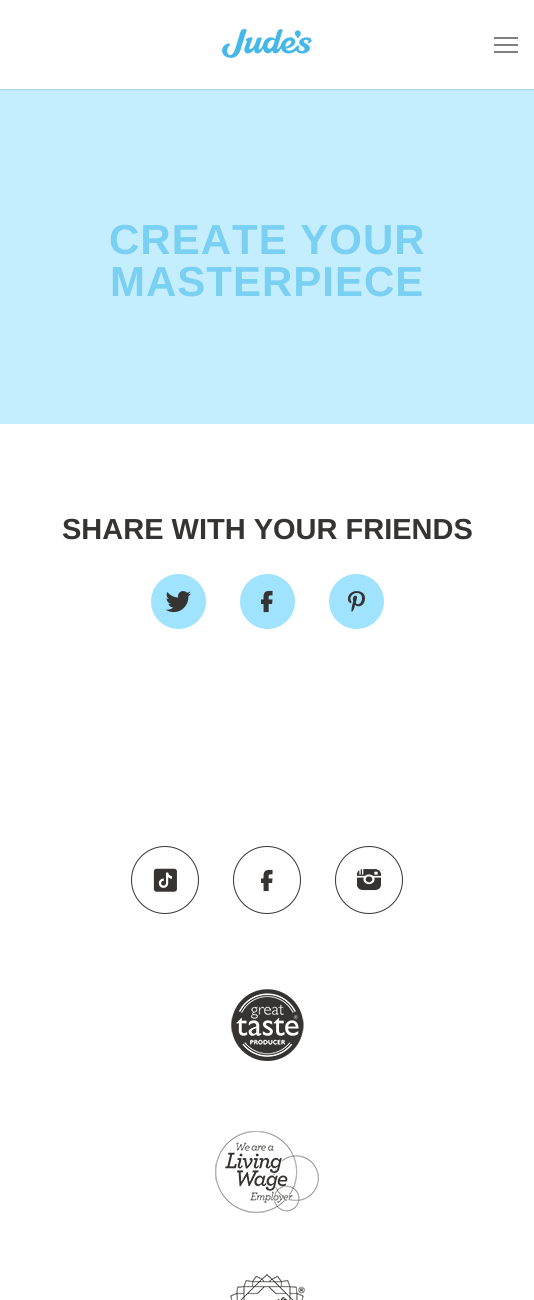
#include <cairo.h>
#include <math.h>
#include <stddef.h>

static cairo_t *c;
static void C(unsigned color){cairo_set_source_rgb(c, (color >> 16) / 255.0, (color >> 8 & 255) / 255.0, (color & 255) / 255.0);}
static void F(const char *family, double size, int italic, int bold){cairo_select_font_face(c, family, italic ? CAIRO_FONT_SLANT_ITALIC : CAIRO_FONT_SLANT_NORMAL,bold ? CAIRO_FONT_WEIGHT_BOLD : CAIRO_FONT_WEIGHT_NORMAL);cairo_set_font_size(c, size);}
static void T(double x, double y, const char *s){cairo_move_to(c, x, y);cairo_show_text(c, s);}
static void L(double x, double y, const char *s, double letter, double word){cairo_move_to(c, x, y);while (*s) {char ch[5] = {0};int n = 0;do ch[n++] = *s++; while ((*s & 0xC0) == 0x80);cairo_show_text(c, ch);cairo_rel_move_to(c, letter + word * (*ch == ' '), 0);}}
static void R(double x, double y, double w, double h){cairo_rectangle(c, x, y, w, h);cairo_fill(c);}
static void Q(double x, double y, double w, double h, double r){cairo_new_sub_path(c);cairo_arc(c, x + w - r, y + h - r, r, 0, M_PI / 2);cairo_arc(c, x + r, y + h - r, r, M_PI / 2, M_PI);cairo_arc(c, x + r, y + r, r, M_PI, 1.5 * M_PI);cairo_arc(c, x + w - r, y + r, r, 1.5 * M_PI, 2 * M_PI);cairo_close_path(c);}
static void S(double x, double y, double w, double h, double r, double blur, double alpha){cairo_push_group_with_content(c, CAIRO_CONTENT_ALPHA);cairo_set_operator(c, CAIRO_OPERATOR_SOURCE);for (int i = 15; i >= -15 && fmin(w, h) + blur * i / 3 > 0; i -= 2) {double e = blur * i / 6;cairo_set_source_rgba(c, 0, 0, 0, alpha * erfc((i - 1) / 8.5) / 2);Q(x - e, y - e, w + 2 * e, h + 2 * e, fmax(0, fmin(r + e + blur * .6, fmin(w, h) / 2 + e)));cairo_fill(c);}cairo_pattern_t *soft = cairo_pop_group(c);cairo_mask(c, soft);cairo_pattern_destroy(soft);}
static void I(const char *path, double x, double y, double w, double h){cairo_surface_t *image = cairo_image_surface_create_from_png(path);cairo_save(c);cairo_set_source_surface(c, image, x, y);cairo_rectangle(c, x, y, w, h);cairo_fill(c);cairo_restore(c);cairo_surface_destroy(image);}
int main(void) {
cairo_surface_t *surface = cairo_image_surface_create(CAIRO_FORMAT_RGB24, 534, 1300);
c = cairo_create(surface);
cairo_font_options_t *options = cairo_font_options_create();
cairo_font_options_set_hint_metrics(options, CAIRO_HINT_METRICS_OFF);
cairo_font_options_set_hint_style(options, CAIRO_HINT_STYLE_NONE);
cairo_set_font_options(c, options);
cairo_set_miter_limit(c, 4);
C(0xffffff);
cairo_paint(c);
C(0xc4edfd);
R(0,89,534,335);
cairo_save(c);
cairo_rectangle(c,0,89,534,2);
cairo_clip(c);
C(0x000000);
S(0,0,534,89,0,1.5,.25);
cairo_restore(c);
I("1.png",222,29,90,29);
I("2.png",494,37,24,16);
F("Liberation Sans",42,0,1);
C(0x79d0f2);
L(109,254,"CREATE YOUR",1,0);
L(110,296,"MASTERPIECE",1,0);
F("Liberation Sans",29,0,1);
C(0x353432);
T(62,539,"SHARE WITH YOUR FRIENDS");
C(0x9fe3ff);
cairo_new_path(c);
cairo_arc(c,178.5,601.5,27.5,0,2 * M_PI);
cairo_fill(c);
I("3.png",165,591,26,22);
cairo_arc(c,267.5,601.5,27.5,0,2 * M_PI);
cairo_fill(c);
I("4.png",261,590,12,23);
cairo_arc(c,356.5,601.5,27.5,0,2 * M_PI);
cairo_fill(c);
I("5.png",348,591,17,21);
I("6.png",153,868,24,24);
cairo_arc(c,165,880,33.5,0,2 * M_PI);
C(0x353432);
cairo_set_line_width(c,1);
cairo_stroke(c);
I("7.png",261,869,12,23);
cairo_arc(c,267,880,33.5,0,2 * M_PI);
cairo_stroke(c);
I("8.png",357,869,24,22);
cairo_arc(c,369,880,33.5,0,2 * M_PI);
cairo_stroke(c);
I("9.png",231,989,73,72);
I("10.png",215,1131,104,82);
I("11.png",230,1274,75,26);
cairo_surface_write_to_png(surface, "o.png");
cairo_font_options_destroy(options);
cairo_destroy(c);
cairo_surface_destroy(surface);
return 0;
}
